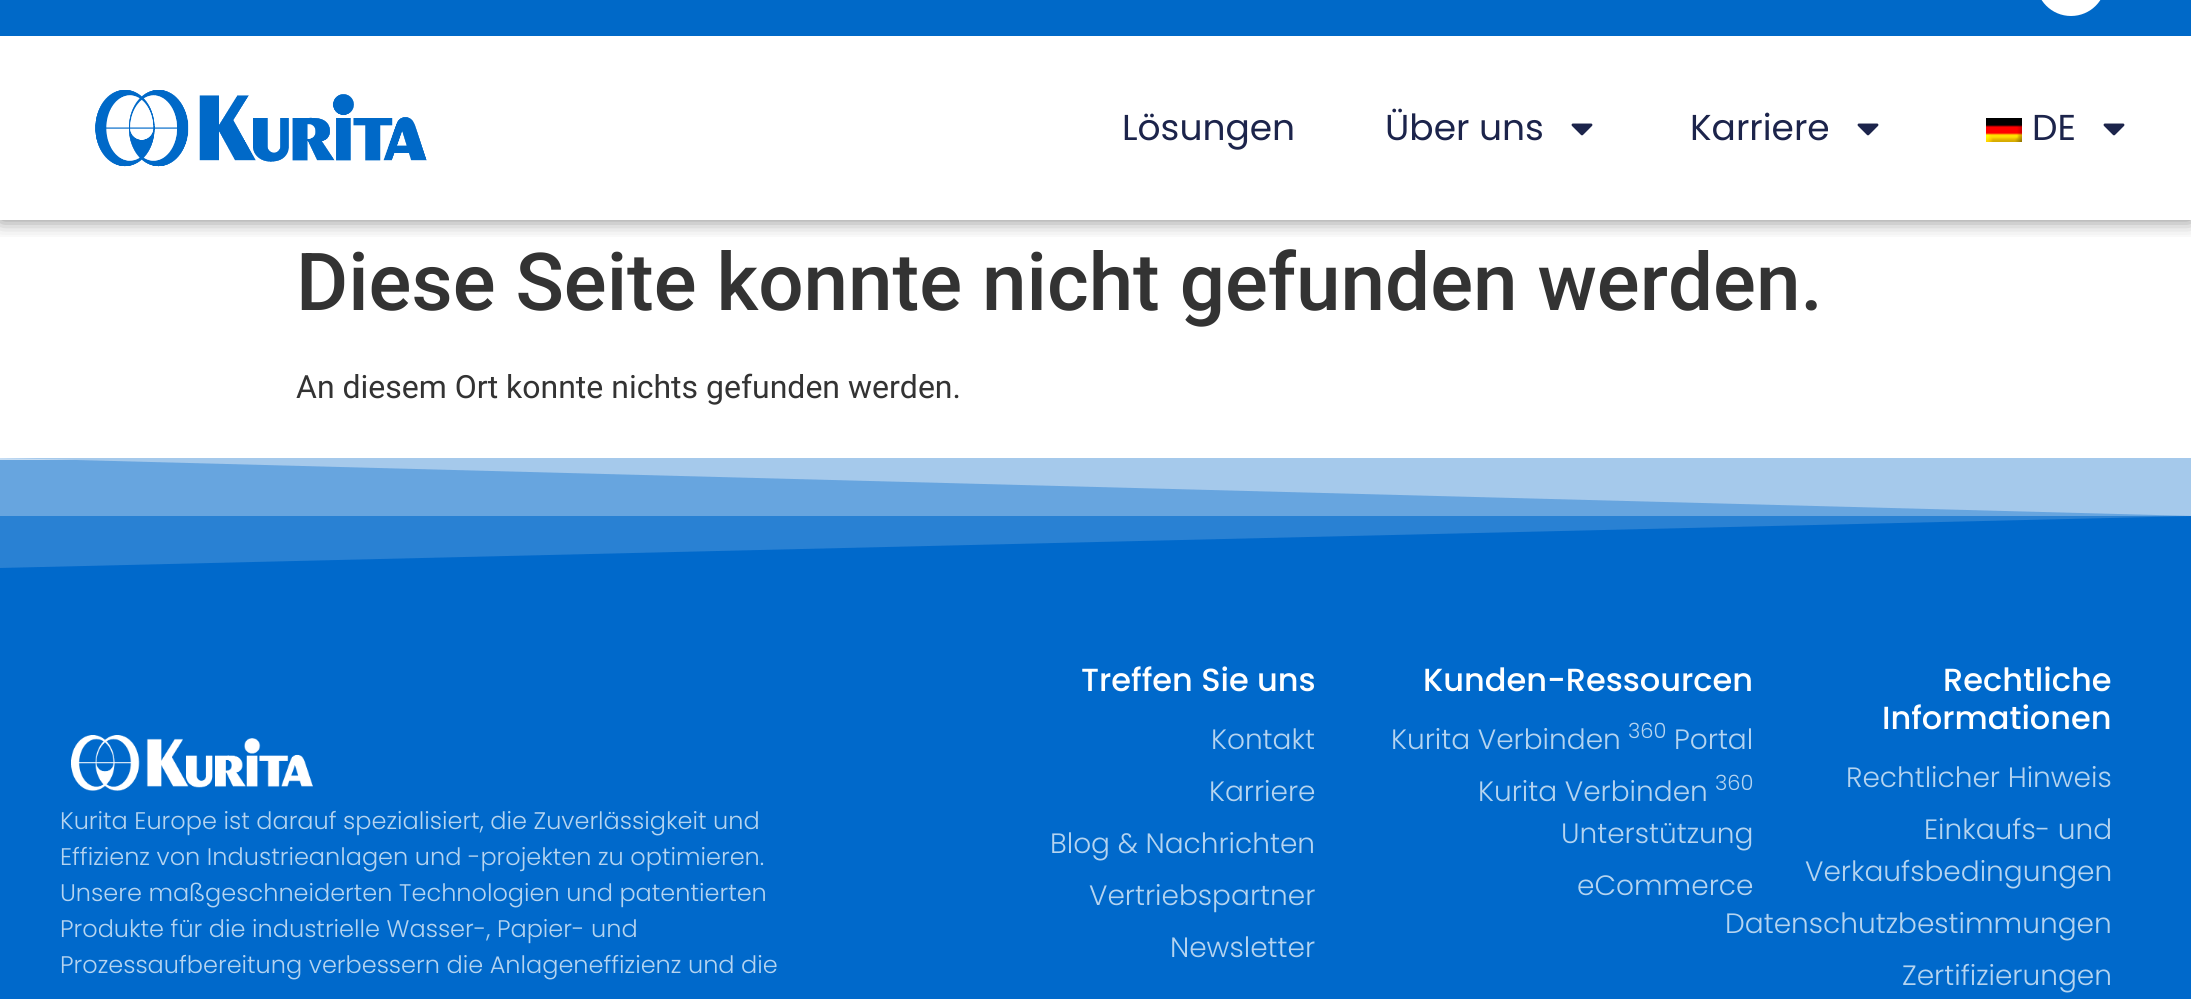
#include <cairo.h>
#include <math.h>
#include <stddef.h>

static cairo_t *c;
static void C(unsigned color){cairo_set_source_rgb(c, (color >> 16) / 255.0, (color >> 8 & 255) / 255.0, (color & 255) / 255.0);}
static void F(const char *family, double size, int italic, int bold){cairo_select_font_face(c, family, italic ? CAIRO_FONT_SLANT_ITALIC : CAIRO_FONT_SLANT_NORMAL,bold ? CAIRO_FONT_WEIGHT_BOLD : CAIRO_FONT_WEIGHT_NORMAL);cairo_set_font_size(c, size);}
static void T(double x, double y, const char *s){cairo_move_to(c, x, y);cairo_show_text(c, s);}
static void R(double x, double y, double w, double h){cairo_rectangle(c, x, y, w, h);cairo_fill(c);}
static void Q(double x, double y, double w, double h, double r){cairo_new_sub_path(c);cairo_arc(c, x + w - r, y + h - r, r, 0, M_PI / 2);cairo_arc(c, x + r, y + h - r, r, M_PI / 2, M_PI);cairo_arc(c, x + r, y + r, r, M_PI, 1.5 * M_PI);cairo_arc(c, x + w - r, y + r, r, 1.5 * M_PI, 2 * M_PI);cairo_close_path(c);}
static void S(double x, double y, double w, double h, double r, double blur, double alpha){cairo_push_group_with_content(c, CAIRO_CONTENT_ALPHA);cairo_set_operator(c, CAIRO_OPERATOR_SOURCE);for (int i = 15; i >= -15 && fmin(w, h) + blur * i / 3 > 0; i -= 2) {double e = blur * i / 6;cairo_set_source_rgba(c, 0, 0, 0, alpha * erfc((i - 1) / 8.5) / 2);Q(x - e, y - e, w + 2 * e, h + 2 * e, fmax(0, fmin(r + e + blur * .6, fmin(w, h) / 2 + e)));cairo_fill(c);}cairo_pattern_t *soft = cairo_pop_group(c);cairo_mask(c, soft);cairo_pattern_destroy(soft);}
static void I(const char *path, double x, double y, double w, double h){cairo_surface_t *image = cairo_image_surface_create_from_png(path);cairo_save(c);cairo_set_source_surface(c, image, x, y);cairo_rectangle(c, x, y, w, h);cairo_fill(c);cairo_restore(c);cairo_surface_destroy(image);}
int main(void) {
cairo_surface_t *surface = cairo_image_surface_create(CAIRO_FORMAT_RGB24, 2191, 999);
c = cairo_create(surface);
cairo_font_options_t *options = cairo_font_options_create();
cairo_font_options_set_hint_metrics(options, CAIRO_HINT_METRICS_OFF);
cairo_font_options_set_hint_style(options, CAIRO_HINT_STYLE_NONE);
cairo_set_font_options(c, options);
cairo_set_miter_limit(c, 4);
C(0xffffff);
cairo_paint(c);
C(0xd2e4f5);
R(0,458,75,2);
cairo_save(c);
cairo_rectangle(c,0,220,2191,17);
cairo_clip(c);
C(0x000000);
S(0,36,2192,184,0,10,.5);
cairo_restore(c);
C(0x0069c8);
R(0,0,2191,36);
C(0xffffff);
Q(2036,-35,70,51,35);
cairo_fill(c);
I("1.png",95,90,332,77);
F("Poppins",36,0,0);
C(0x1c244b);
T(1122,140,"Lösungen");
T(1385,140,"Über uns");
I("2.png",1571,123,22,13);
T(1690,140,"Karriere");
I("2.png",1857,123,22,13);
I("3.png",1986,118,36,24);
T(2032,140,"DE");
I("2.png",2103,123,22,13);
F("Roboto Medium",80,0,0);
C(0x333333);
T(296,310,"Diese Seite konnte nicht gefunden werden.");
F("Roboto",32,0,0);
T(296,398,"An diesem Ort konnte nichts gefunden werden.");
C(0x0069cb);
R(0,516,2191,483);
C(0x5399db);
R(0,460,2191,56);
C(0xa5c9eb);
cairo_new_path(c);
cairo_move_to(c,-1,458);
cairo_line_to(c,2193,458);
cairo_line_to(c,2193,516);
cairo_close_path(c);
cairo_fill(c);
cairo_set_source_rgba(c,0.647,0.788,0.922,0.25);
cairo_new_path(c);
cairo_move_to(c,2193,458);
cairo_line_to(c,-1,458);
cairo_line_to(c,-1,568);
cairo_line_to(c,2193,516);
cairo_close_path(c);
cairo_fill(c);
I("4.png",71,735,242,56);
F("Poppins Light",24,0,0);
C(0xb5d4f0);
T(60,829,"Kurita Europe ist darauf spezialisiert, die Zuverlässigkeit und");
T(60,865,"Effizienz von Industrieanlagen und -projekten zu optimieren.");
T(60,901,"Unsere maßgeschneiderten Technologien und patentierten");
T(60,937,"Produkte für die industrielle Wasser-, Papier- und");
T(60,973,"Prozessaufbereitung verbessern die Anlageneffizienz und die");
F("Poppins Medium",32,0,0);
C(0xffffff);
T(1081,691,"Treffen Sie uns");
F("Poppins Light",28,0,0);
C(0xb5d4f0);
T(1211,749,"Kontakt");
T(1209,801,"Karriere");
T(1050,853,"Blog & Nachrichten");
T(1089,905,"Vertriebspartner");
T(1170,957,"Newsletter");
F("Poppins Medium",32,0,0);
C(0xffffff);
T(1423,691,"Kunden-Ressourcen");
F("Poppins Light",28,0,0);
C(0xb5d4f0);
T(1391,749,"Kurita Verbinden");
F("Poppins Light",21,0,0);
T(1628,738,"360");
F("Poppins Light",28,0,0);
T(1674,749,"Portal");
T(1478,801,"Kurita Verbinden");
F("Poppins Light",21,0,0);
T(1715,790,"360");
F("Poppins Light",28,0,0);
T(1561,843,"Unterstützung");
T(1577,895,"eCommerce");
F("Poppins Medium",32,0,0);
C(0xffffff);
T(1943,691,"Rechtliche");
T(1882,729,"Informationen");
F("Poppins Light",28,0,0);
C(0xb5d4f0);
T(1846,787,"Rechtlicher Hinweis");
T(1924,839,"Einkaufs- und");
T(1805,881,"Verkaufsbedingungen");
T(1725,933,"Datenschutzbestimmungen");
T(1902,985,"Zertifizierungen");
cairo_surface_write_to_png(surface, "o.png");
cairo_font_options_destroy(options);
cairo_destroy(c);
cairo_surface_destroy(surface);
return 0;
}
